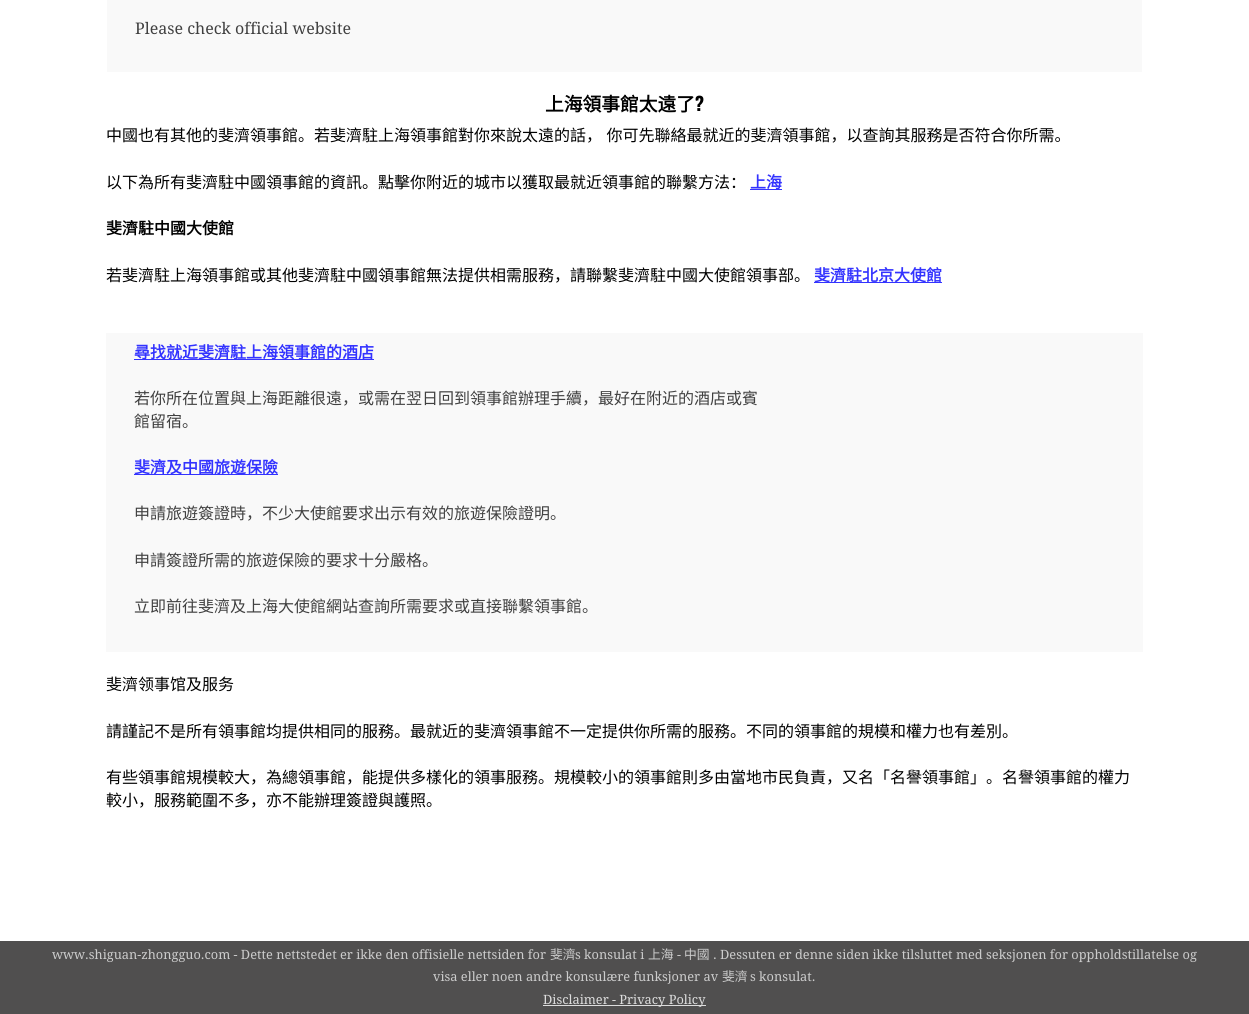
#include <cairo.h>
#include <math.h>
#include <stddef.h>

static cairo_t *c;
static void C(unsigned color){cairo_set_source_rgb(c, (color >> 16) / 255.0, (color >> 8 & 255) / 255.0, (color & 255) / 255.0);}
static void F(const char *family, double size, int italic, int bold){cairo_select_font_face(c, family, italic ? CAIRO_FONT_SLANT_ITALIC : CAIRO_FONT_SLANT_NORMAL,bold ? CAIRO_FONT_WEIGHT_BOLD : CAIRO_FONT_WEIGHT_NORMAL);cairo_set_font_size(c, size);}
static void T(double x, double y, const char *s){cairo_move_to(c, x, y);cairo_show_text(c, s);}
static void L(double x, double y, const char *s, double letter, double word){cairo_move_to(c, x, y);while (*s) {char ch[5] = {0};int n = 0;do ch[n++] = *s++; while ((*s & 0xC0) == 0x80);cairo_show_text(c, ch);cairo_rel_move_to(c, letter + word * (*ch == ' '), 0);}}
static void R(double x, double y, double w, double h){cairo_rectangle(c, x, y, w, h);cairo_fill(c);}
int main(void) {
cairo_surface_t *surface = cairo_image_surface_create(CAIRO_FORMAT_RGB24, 1249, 1014);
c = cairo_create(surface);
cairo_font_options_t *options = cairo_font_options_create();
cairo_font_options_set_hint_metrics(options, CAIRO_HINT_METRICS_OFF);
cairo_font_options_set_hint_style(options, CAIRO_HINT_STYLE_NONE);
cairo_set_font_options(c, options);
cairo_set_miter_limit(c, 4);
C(0xffffff);
cairo_paint(c);
C(0xf9f9f9);
R(107,0,1035,72);
F("Droid Serif",16,0,0);
C(0x404040);
T(135,34,"Please check official website");
F("Noto Sans CJK SC",18.75,0,1);
C(0x000000);
T(545,111,"上海領事館太遠了");
F("Oswald",18.75,0,1);
T(695,111,"?");
F("Noto Sans CJK SC",16,0,0);
L(106,141,"中國也有其他的斐濟領事館。若斐濟駐上海領事館對你來說太遠的話， 你可先聯絡最就近的斐濟領事館，以查詢其服務是否符合你所需。",0,1);
T(106,188,"以下為所有斐濟駐中國領事館的資訊。點擊你附近的城市以獲取最就近領事館的聯繫方法：");
C(0x3333ff);
R(750,189,32,1);
F("Noto Sans CJK SC",16,0,1);
T(750,188,"上海");
C(0x000000);
T(106,234,"斐濟駐中國大使館");
F("Noto Sans CJK SC",16,0,0);
T(106,281,"若斐濟駐上海領事館或其他斐濟駐中國領事館無法提供相需服務，請聯繫斐濟駐中國大使館領事部。");
C(0x3333ff);
R(814,282,128,1);
F("Noto Sans CJK SC",16,0,1);
T(814,281,"斐濟駐北京大使館");
C(0xf9f9f9);
R(106,333,1037,319);
C(0x3333ff);
R(134,359,240,1);
T(134,358,"尋找就近斐濟駐上海領事館的酒店");
F("Noto Sans CJK SC",16,0,0);
C(0x404040);
T(134,404,"若你所在位置與上海距離很遠，或需在翌日回到領事館辦理手續，最好在附近的酒店或賓");
T(134,427,"館留宿。");
C(0x3333ff);
R(134,474,144,1);
F("Noto Sans CJK SC",16,0,1);
T(134,473,"斐濟及中國旅遊保險");
F("Noto Sans CJK SC",16,0,0);
C(0x404040);
T(134,519,"申請旅遊簽證時，不少大使館要求出示有效的旅遊保險證明。");
T(134,566,"申請簽證所需的旅遊保險的要求十分嚴格。");
T(134,612,"立即前往斐濟及上海大使館網站查詢所需要求或直接聯繫領事館。");
C(0x000000);
T(106,690,"斐濟领事馆及服务");
T(106,737,"請謹記不是所有領事館均提供相同的服務。最就近的斐濟領事館不一定提供你所需的服務。不同的領事館的規模和權力也有差別。");
T(106,783,"有些領事館規模較大，為總領事館，能提供多樣化的領事服務。規模較小的領事館則多由當地市民負責，又名「名譽領事館」。名譽領事館的權力");
T(106,806,"較小，服務範圍不多，亦不能辦理簽證與護照。");
C(0x504f4f);
R(0,941,1249,73);
F("Droid Serif",12.8,0,0);
C(0xcccccc);
T(52,959,"www.shiguan-zhongguo.com - Dette nettstedet er ikke den offisielle nettsiden for");
F("Noto Sans CJK SC",12.8,0,0);
T(550,959,"斐濟");
F("Droid Serif",12.8,0,0);
T(575,959,"s konsulat i");
F("Noto Sans CJK SC",12.8,0,0);
T(648,959,"上海");
F("Droid Serif",12.8,0,0);
T(677,959,"-");
F("Noto Sans CJK SC",12.8,0,0);
T(684,959,"中國");
F("Droid Serif",12.8,0,0);
T(713,959,". Dessuten er denne siden ikke tilsluttet med seksjonen for oppholdstillatelse og");
T(433,981,"visa eller noen andre konsulære funksjoner av");
F("Noto Sans CJK SC",12.8,0,0);
T(722,981,"斐濟");
F("Droid Serif",12.8,0,0);
T(750,981,"s konsulat.");
C(0xdddddd);
R(543,1005,163,1);
T(543,1004,"Disclaimer - Privacy Policy");
cairo_surface_write_to_png(surface, "o.png");
cairo_font_options_destroy(options);
cairo_destroy(c);
cairo_surface_destroy(surface);
return 0;
}
